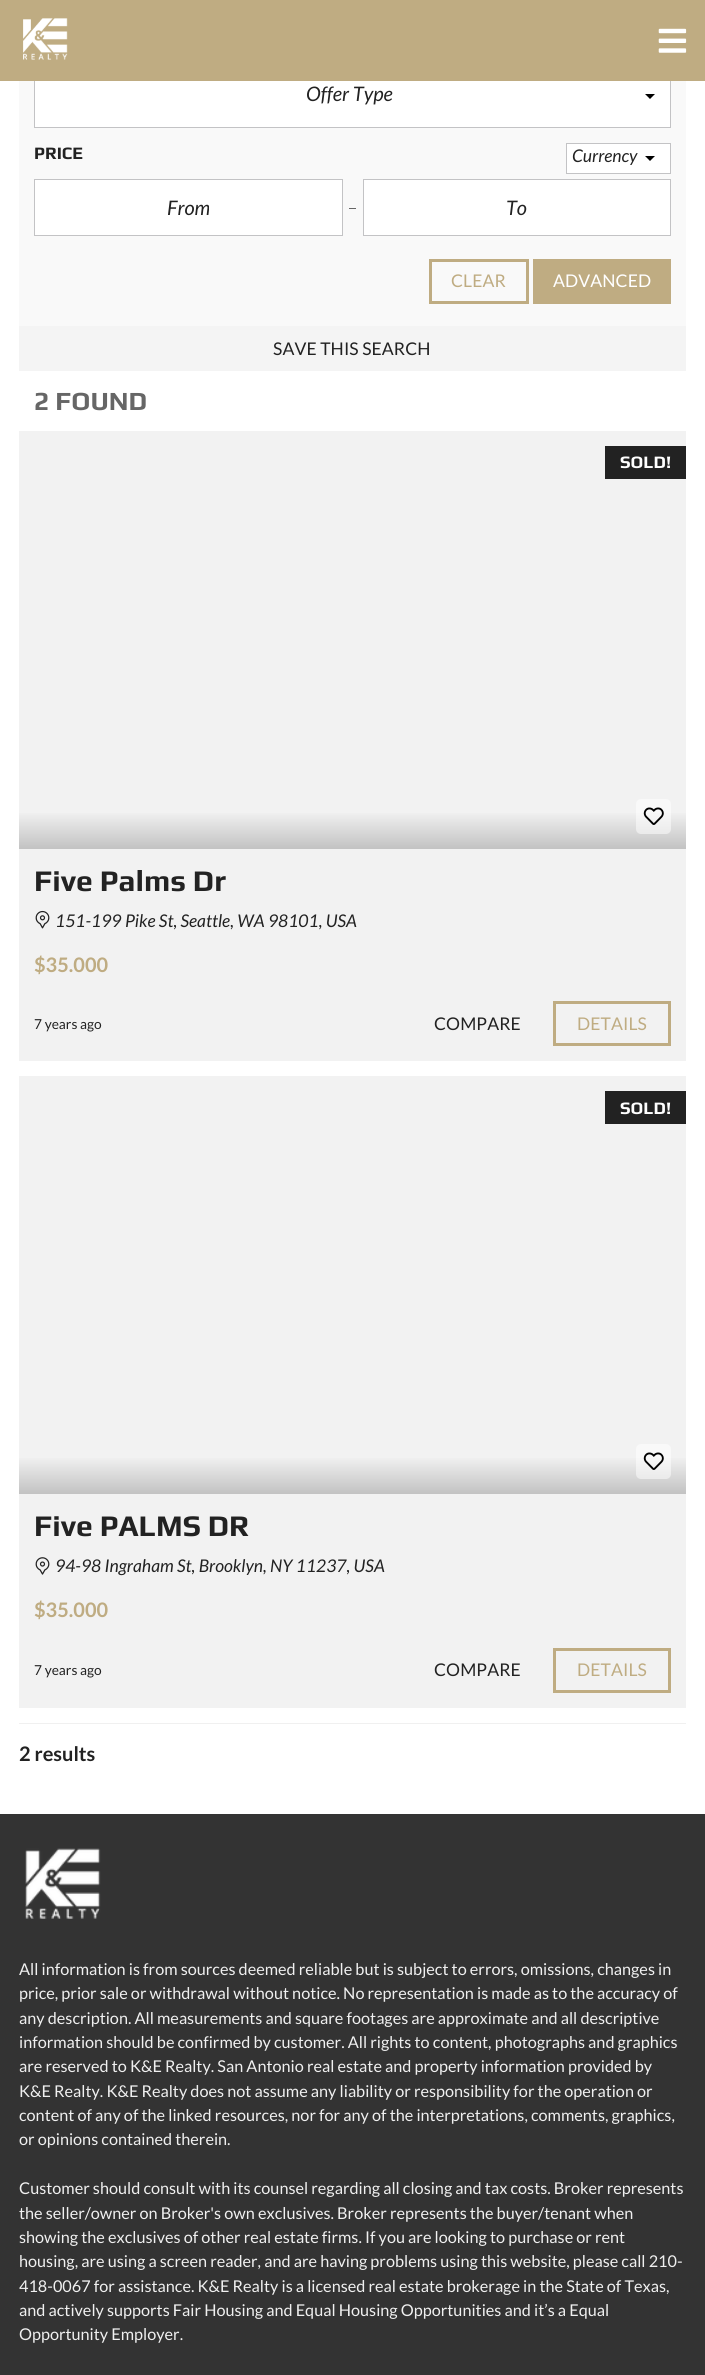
#include <cairo.h>
#include <math.h>
#include <stddef.h>

static cairo_t *c;
static void C(unsigned color){cairo_set_source_rgb(c, (color >> 16) / 255.0, (color >> 8 & 255) / 255.0, (color & 255) / 255.0);}
static void F(const char *family, double size, int italic, int bold){cairo_select_font_face(c, family, italic ? CAIRO_FONT_SLANT_ITALIC : CAIRO_FONT_SLANT_NORMAL,bold ? CAIRO_FONT_WEIGHT_BOLD : CAIRO_FONT_WEIGHT_NORMAL);cairo_set_font_size(c, size);}
static void T(double x, double y, const char *s){cairo_move_to(c, x, y);cairo_show_text(c, s);}
static void L(double x, double y, const char *s, double letter, double word){cairo_move_to(c, x, y);while (*s) {char ch[5] = {0};int n = 0;do ch[n++] = *s++; while ((*s & 0xC0) == 0x80);cairo_show_text(c, ch);cairo_rel_move_to(c, letter + word * (*ch == ' '), 0);}}
static void R(double x, double y, double w, double h){cairo_rectangle(c, x, y, w, h);cairo_fill(c);}
static void Q(double x, double y, double w, double h, double r){cairo_new_sub_path(c);cairo_arc(c, x + w - r, y + h - r, r, 0, M_PI / 2);cairo_arc(c, x + r, y + h - r, r, M_PI / 2, M_PI);cairo_arc(c, x + r, y + r, r, M_PI, 1.5 * M_PI);cairo_arc(c, x + w - r, y + r, r, 1.5 * M_PI, 2 * M_PI);cairo_close_path(c);}
static void I(const char *path, double x, double y, double w, double h){cairo_surface_t *image = cairo_image_surface_create_from_png(path);cairo_save(c);cairo_set_source_surface(c, image, x, y);cairo_rectangle(c, x, y, w, h);cairo_fill(c);cairo_restore(c);cairo_surface_destroy(image);}
int main(void) {
cairo_surface_t *surface = cairo_image_surface_create(CAIRO_FORMAT_RGB24, 705, 2375);
c = cairo_create(surface);
cairo_font_options_t *options = cairo_font_options_create();
cairo_font_options_set_hint_metrics(options, CAIRO_HINT_METRICS_OFF);
cairo_font_options_set_hint_style(options, CAIRO_HINT_STYLE_NONE);
cairo_set_font_options(c, options);
cairo_set_miter_limit(c, 4);
cairo_pattern_t *gradient;
C(0xffffff);
cairo_paint(c);
C(0xf9f9f9);
R(19,81,667,245);
C(0xffffff);
R(35,81,635,46);
cairo_rectangle(c,34.5,65.5,636,62);
C(0xc3c3c5);
cairo_set_line_width(c,1);
cairo_stroke(c);
C(0xbfac82);
R(0,0,705,81);
I("1.png",23,18,45,42);
I("2.png",658,28,29,25);
F("Lato",20,1,0);
C(0x222222);
T(306,101,"Offer Type");
C(0x000000);
cairo_new_path(c);
cairo_move_to(c,645,94);
cairo_line_to(c,655,94);
cairo_line_to(c,650,99);
cairo_close_path(c);
cairo_fill(c);
F("Play",17.5,0,1);
C(0x222222);
T(34,159,"PRICE");
C(0xffffff);
cairo_rectangle(c,566.5,143.5,104,30);
cairo_fill_preserve(c);
C(0xc3c3c5);
cairo_stroke(c);
F("Lato",17.5,1,0);
C(0x222222);
T(572,162,"Currency");
C(0x000000);
cairo_new_path(c);
cairo_move_to(c,645,156);
cairo_line_to(c,655,156);
cairo_line_to(c,650,161);
cairo_close_path(c);
cairo_fill(c);
C(0xffffff);
cairo_rectangle(c,34.5,179.5,308,56);
cairo_fill_preserve(c);
C(0xc3c3c5);
cairo_stroke(c);
F("Lato",20,1,0);
C(0x222222);
T(167,215,"From");
C(0x666666);
R(349,208,7,1);
C(0xffffff);
cairo_rectangle(c,363.5,179.5,307,56);
cairo_fill_preserve(c);
C(0xc3c3c5);
cairo_stroke(c);
C(0x222222);
T(506,215,"To");
cairo_rectangle(c,430.5,260.5,97,42);
C(0xbfac82);
cairo_set_line_width(c,3);
cairo_stroke(c);
F("Lato",17.5,0,0);
L(451,287,"CLEAR",.1,0);
R(533,259,138,45);
C(0xffffff);
L(553,287,"ADVANCED",.1,0);
C(0xf4f4f4);
R(19,326,667,45);
C(0x222222);
L(273,355,"SAVE THIS SEARCH",.1,0);
F("Play",26.25,0,1);
C(0x666666);
T(34,410,"2 FOUND");
C(0xf2f2f2);
R(19,431,667,630);
C(0x222222);
R(605,446,81,33);
F("Play",17.5,0,1);
C(0xffffff);
T(620,468,"SOLD!");
gradient = cairo_pattern_create_linear(353,811,353,849);
cairo_pattern_add_color_stop_rgba(gradient,0,0.949,0.949,0.949,1);
cairo_pattern_add_color_stop_rgba(gradient,1,0.761,0.761,0.761,1);
cairo_set_source(c,gradient);
cairo_pattern_destroy(gradient);
R(19,813,667,36);
cairo_set_source_rgba(c,1,1,1,0.5);
Q(636,799,35,35,5);
cairo_fill(c);
I("3.png",643,807,21,18);
F("Play",30,0,1);
C(0x222222);
T(34,891,"Five Palms Dr");
I("4.png",35,910,15,19);
F("Lato",17.5,1,0);
T(55,927,"151-199 Pike St, Seattle, WA 98101, USA");
F("Lato",20,0,1);
C(0xbfac82);
T(34,972,"$35.000");
F("Lato",13.75,0,0);
C(0x222222);
T(34,1029,"7 years ago");
F("Lato",17.5,0,0);
L(434,1030,"COMPARE",.1,0);
cairo_rectangle(c,554.5,1002.5,115,42);
C(0xbfac82);
cairo_stroke(c);
L(577,1030,"DETAILS",.1,0);
C(0xf2f2f2);
R(19,1076,667,632);
C(0x222222);
R(605,1091,81,33);
F("Play",17.5,0,1);
C(0xffffff);
T(620,1114,"SOLD!");
gradient = cairo_pattern_create_linear(353,1456,353,1494);
cairo_pattern_add_color_stop_rgba(gradient,0,0.949,0.949,0.949,1);
cairo_pattern_add_color_stop_rgba(gradient,1,0.761,0.761,0.761,1);
cairo_set_source(c,gradient);
cairo_pattern_destroy(gradient);
R(19,1458,667,36);
cairo_set_source_rgba(c,1,1,1,0.5);
Q(636,1444,35,35,5);
cairo_fill(c);
I("3.png",643,1452,21,18);
F("Play",30,0,1);
C(0x222222);
T(34,1536,"Five PALMS DR");
I("5.png",35,1557,15,18);
F("Lato",17.5,1,0);
T(55,1572,"94-98 Ingraham St, Brooklyn, NY 11237, USA");
F("Lato",20,0,1);
C(0xbfac82);
T(34,1617,"$35.000");
F("Lato",13.75,0,0);
C(0x222222);
T(34,1675,"7 years ago");
F("Lato",17.5,0,0);
L(434,1676,"COMPARE",.1,0);
cairo_rectangle(c,554.5,1649.5,115,42);
C(0xbfac82);
cairo_stroke(c);
L(577,1676,"DETAILS",.1,0);
C(0xf0f0f0);
R(19,1723,667,1);
F("Lato",20,0,1);
C(0x222222);
T(19,1761,"2 results");
C(0x333333);
R(0,1814,705,561);
I("6.png",25,1848,76,71);
F("Lato",16.25,0,0);
C(0xf0f0f0);
T(19,1975,"All information is from sources deemed reliable but is subject to errors, omissions, changes in");
T(19,1999,"price, prior sale or withdrawal without notice. No representation is made as to the accuracy of");
T(19,2024,"any description. All measurements and square footages are approximate and all descriptive");
T(19,2048,"information should be confirmed by customer. All rights to content, photographs and graphics");
T(19,2072,"are reserved to K&E Realty. San Antonio real estate and property information provided by");
T(19,2097,"K&E Realty. K&E Realty does not assume any liability or responsibility for the operation or");
T(19,2121,"content of any of the linked resources, nor for any of the interpretations, comments, graphics,");
T(19,2145,"or opinions contained therein.");
T(19,2194,"Customer should consult with its counsel regarding all closing and tax costs. Broker represents");
T(19,2219,"the seller/owner on Broker's own exclusives. Broker represents the buyer/tenant when");
T(19,2243,"showing the exclusives of other real estate firms. If you are looking to purchase or rent");
T(19,2267,"housing, are using a screen reader, and are having problems using this website, please call 210-");
T(19,2292,"418-0067 for assistance. K&E Realty is a licensed real estate brokerage in the State of Texas,");
T(19,2316,"and actively supports Fair Housing and Equal Housing Opportunities and it’s a Equal");
T(19,2340,"Opportunity Employer.");
cairo_surface_write_to_png(surface, "o.png");
cairo_font_options_destroy(options);
cairo_destroy(c);
cairo_surface_destroy(surface);
return 0;
}
